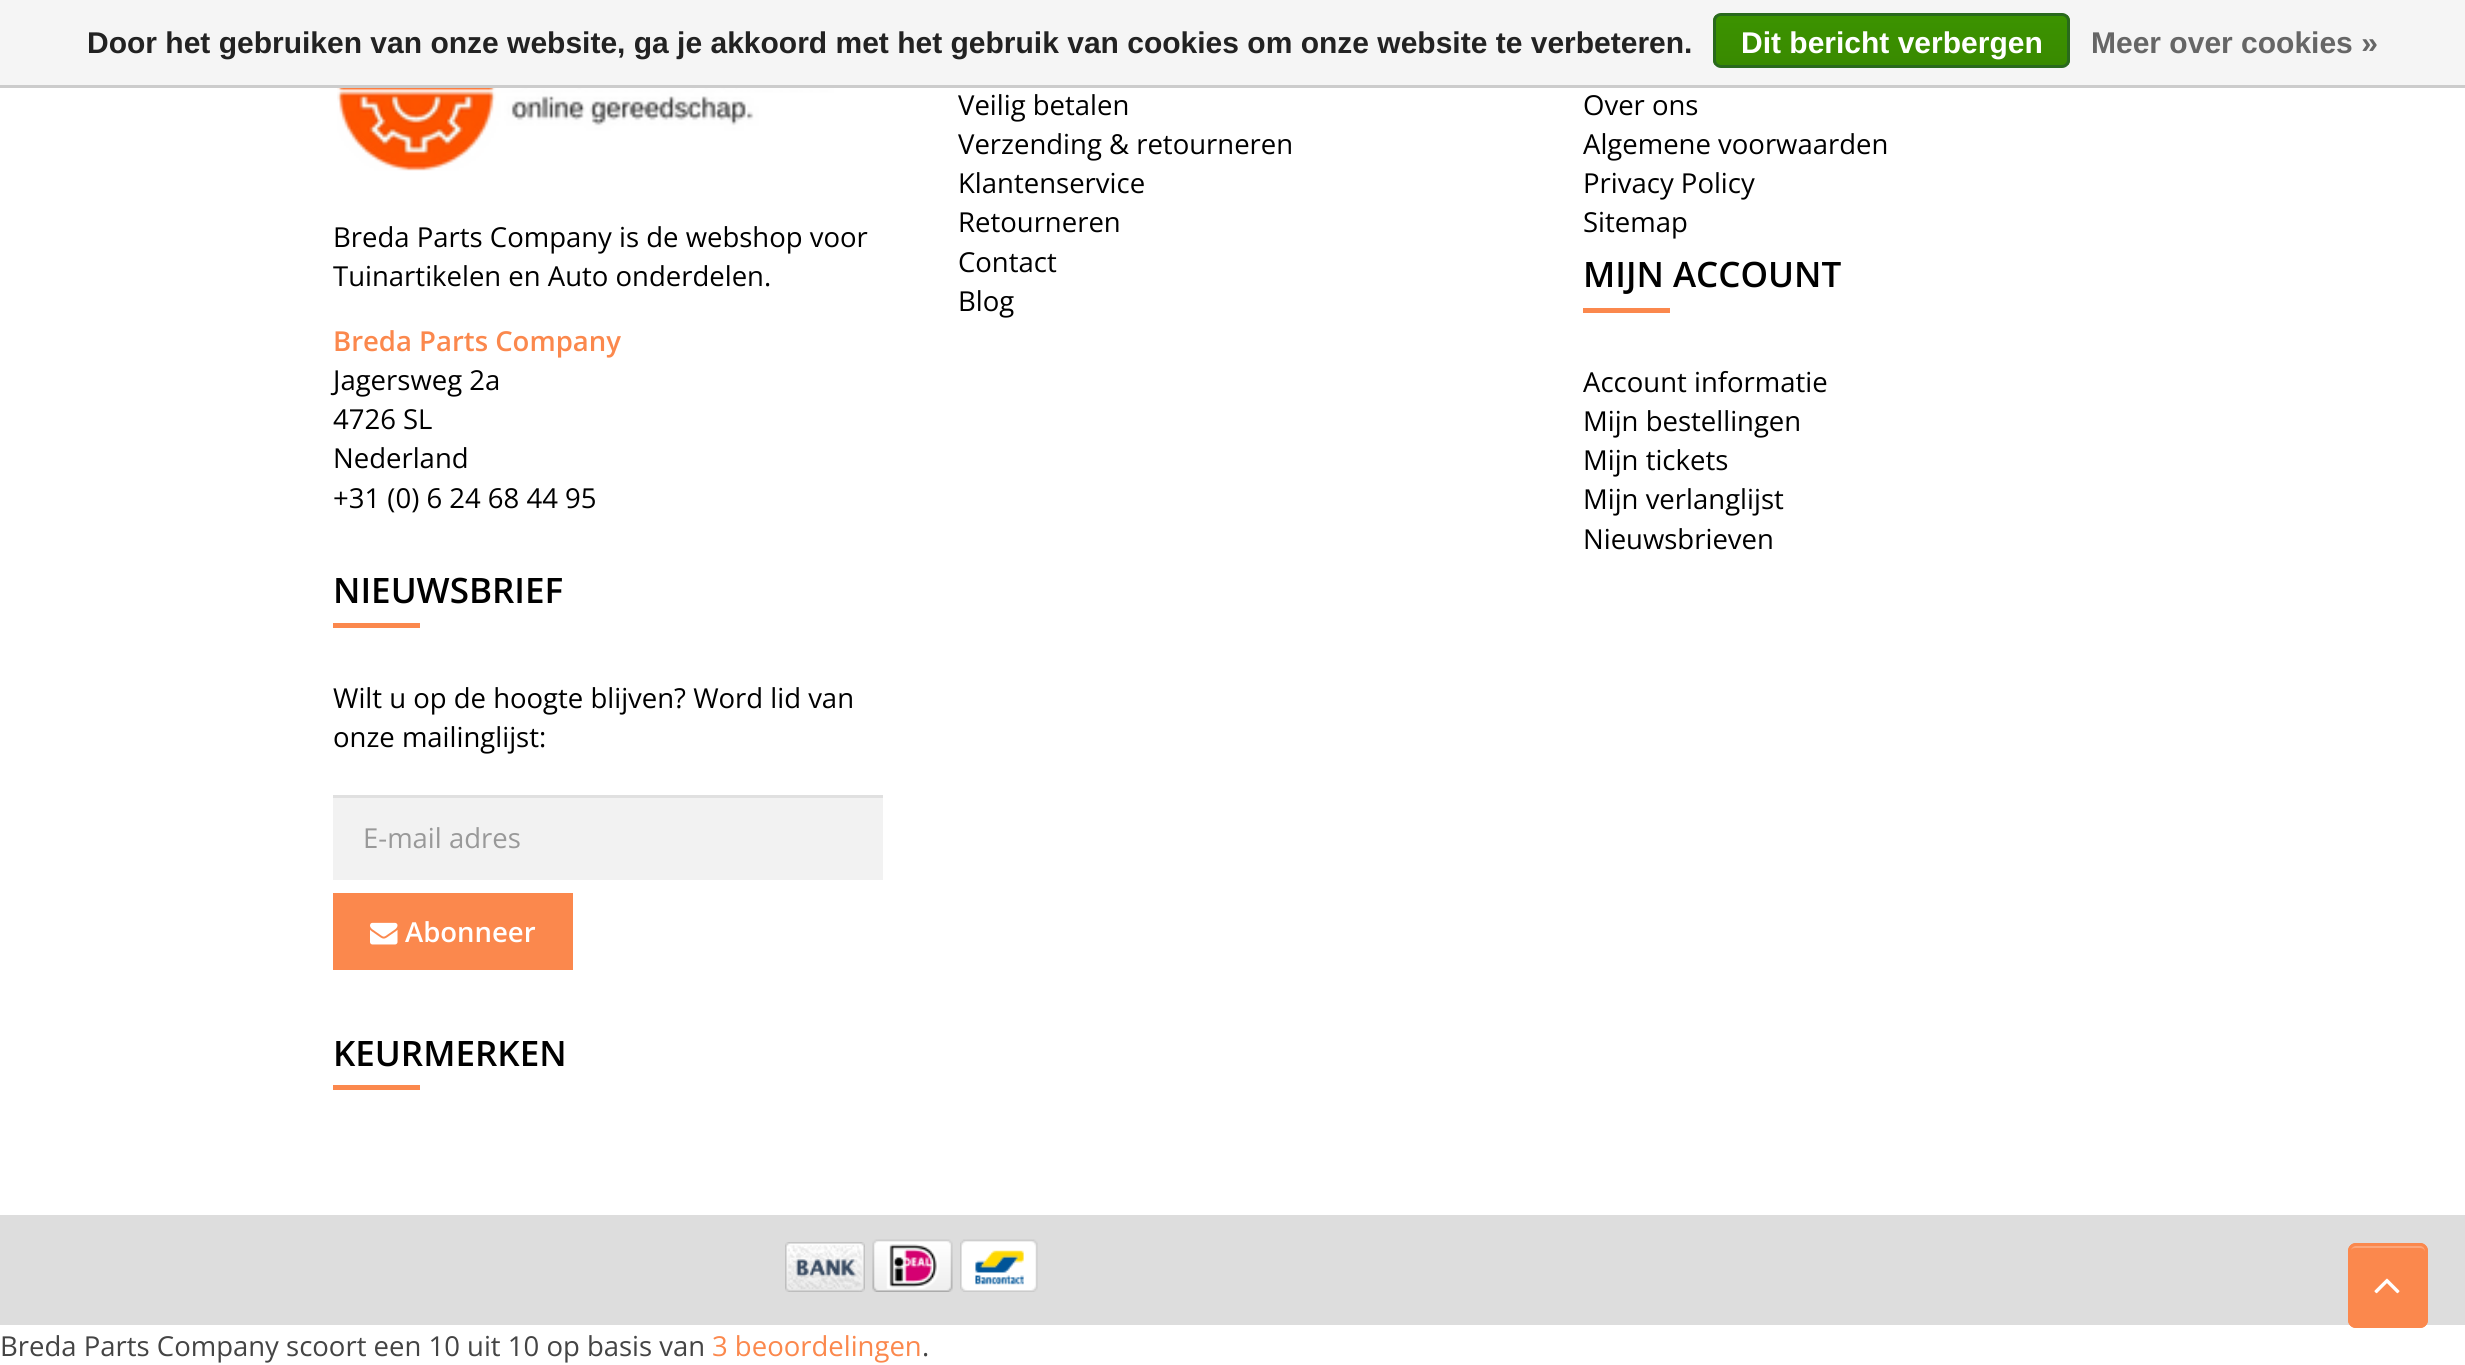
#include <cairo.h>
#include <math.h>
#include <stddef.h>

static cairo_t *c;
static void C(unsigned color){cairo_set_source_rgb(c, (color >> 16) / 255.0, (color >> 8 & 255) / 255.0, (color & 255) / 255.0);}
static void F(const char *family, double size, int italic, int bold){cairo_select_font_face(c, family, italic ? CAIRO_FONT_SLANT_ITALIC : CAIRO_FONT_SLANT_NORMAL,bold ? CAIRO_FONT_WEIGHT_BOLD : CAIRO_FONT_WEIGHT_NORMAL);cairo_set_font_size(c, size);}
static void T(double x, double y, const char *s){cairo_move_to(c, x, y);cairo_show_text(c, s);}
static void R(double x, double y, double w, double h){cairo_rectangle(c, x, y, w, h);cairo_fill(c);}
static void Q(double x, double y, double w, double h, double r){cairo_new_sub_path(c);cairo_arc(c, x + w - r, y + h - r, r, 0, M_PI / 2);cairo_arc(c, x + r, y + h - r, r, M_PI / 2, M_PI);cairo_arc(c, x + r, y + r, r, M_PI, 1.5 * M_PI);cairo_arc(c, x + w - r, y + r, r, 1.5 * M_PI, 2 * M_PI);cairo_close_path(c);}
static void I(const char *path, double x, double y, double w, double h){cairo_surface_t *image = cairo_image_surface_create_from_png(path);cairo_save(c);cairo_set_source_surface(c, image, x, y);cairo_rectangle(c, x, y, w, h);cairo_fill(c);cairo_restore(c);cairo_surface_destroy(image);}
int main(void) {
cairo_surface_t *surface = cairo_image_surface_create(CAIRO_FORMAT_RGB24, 2465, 1365);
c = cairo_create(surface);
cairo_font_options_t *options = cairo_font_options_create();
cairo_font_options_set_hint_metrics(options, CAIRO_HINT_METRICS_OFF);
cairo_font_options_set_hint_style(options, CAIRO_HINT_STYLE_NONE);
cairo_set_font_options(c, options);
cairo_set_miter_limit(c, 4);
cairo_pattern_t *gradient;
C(0xffffff);
cairo_paint(c);
C(0xf5f5f5);
R(0,0,2465,85);
C(0xcccccc);
R(0,85,2465,3);
F("Liberation Sans",30,0,1);
C(0x222222);
T(87,53,"Door het gebruiken van onze website, ga je akkoord met het gebruik van cookies om onze website te verbeteren.");
cairo_save(c);
Q(1713,13,357,55,8);
cairo_clip(c);
gradient = cairo_pattern_create_linear(1891,15,1891,65);
cairo_pattern_add_color_stop_rgba(gradient,0,0.235,0.576,0,1);
cairo_pattern_add_color_stop_rgba(gradient,1,0.224,0.541,0,1);
cairo_set_source(c,gradient);
cairo_pattern_destroy(gradient);
R(1713,15,357,50);
cairo_restore(c);
Q(1714.5,14.5,354,52,6.5);
C(0x29691d);
cairo_set_line_width(c,3);
cairo_stroke(c);
C(0xffffff);
T(1741,53,"Dit bericht verbergen");
C(0x666666);
T(2091,53,"Meer over cookies »");
F("Open Sans",27.5,0,0);
C(0x000000);
T(958,115,"Veilig betalen");
T(958,154,"Verzending & retourneren");
T(958,193,"Klantenservice");
T(958,232,"Retourneren");
T(958,272,"Contact");
T(958,311,"Blog");
T(1583,115,"Over ons");
T(1583,154,"Algemene voorwaarden");
T(1583,193,"Privacy Policy");
T(1583,232,"Sitemap");
I("1.png",337,88,497,83);
T(333,247,"Breda Parts Company is de webshop voor");
T(333,286,"Tuinartikelen en Auto onderdelen.");
F("Open Sans SemiBold",27.5,0,0);
C(0xfb884d);
T(333,351,"Breda Parts Company");
F("Open Sans",27.5,0,0);
C(0x000000);
T(333,390,"Jagersweg 2a");
T(333,429,"4726 SL");
T(333,468,"Nederland");
T(333,508,"+31 (0) 6 24 68 44 95");
F("Open Sans SemiBold",35,0,0);
T(1583,287,"MIJN ACCOUNT");
C(0xfb884d);
R(1583,308,87,5);
F("Open Sans",27.5,0,0);
C(0x000000);
T(1583,392,"Account informatie");
T(1583,431,"Mijn bestellingen");
T(1583,470,"Mijn tickets");
T(1583,509,"Mijn verlanglijst");
T(1583,549,"Nieuwsbrieven");
F("Open Sans SemiBold",35,0,0);
T(333,603,"NIEUWSBRIEF");
C(0xfb884d);
R(333,623,87,5);
F("Open Sans",27.5,0,0);
C(0x000000);
T(333,708,"Wilt u op de hoogte blijven? Word lid van");
T(333,747,"onze mailinglijst:");
C(0xf2f2f2);
R(333,798,550,82);
C(0xe0e0e0);
R(333,795,550,3);
C(0x999999);
T(363,848,"E-mail adres");
C(0xfb884d);
R(333,893,240,77);
I("2.png",370,922,28,23);
F("Open Sans SemiBold",27.5,0,0);
C(0xffffff);
T(405,942,"Abonneer");
F("Open Sans SemiBold",35,0,0);
C(0x000000);
T(333,1066,"KEURMERKEN");
C(0xfb884d);
R(333,1085,87,5);
C(0xdddddd);
R(0,1215,2465,110);
I("3.png",785,1242,80,50);
I("4.png",872,1239,81,53);
I("5.png",960,1239,78,53);
C(0xfb884d);
Q(2348,1243,80,85,8);
cairo_fill(c);
C(0xfca67a);
cairo_new_path(c);
cairo_move_to(c,2355,1248);
cairo_line_to(c,2420,1248);
cairo_curve_to(c,2423,1248,2425,1250,2425,1252);
cairo_curve_to(c,2425,1242,2417,1245,2409,1245);
cairo_line_to(c,2366,1245);
cairo_curve_to(c,2358,1245,2350,1242,2350,1252);
cairo_curve_to(c,2350,1250,2352,1248,2355,1248);
cairo_close_path(c);
cairo_fill(c);
Q(2349.5,1244.5,77,82,6.5);
C(0xfb884d);
cairo_stroke(c);
I("6.png",2374,1278,26,16);
F("Open Sans",27.5,0,0);
C(0x444444);
T(0,1356,"Breda Parts Company scoort een 10 uit 10 op basis van");
C(0xfb884d);
T(712,1356,"3 beoordelingen");
C(0x444444);
T(922,1356,".");
cairo_surface_write_to_png(surface, "o.png");
cairo_font_options_destroy(options);
cairo_destroy(c);
cairo_surface_destroy(surface);
return 0;
}
